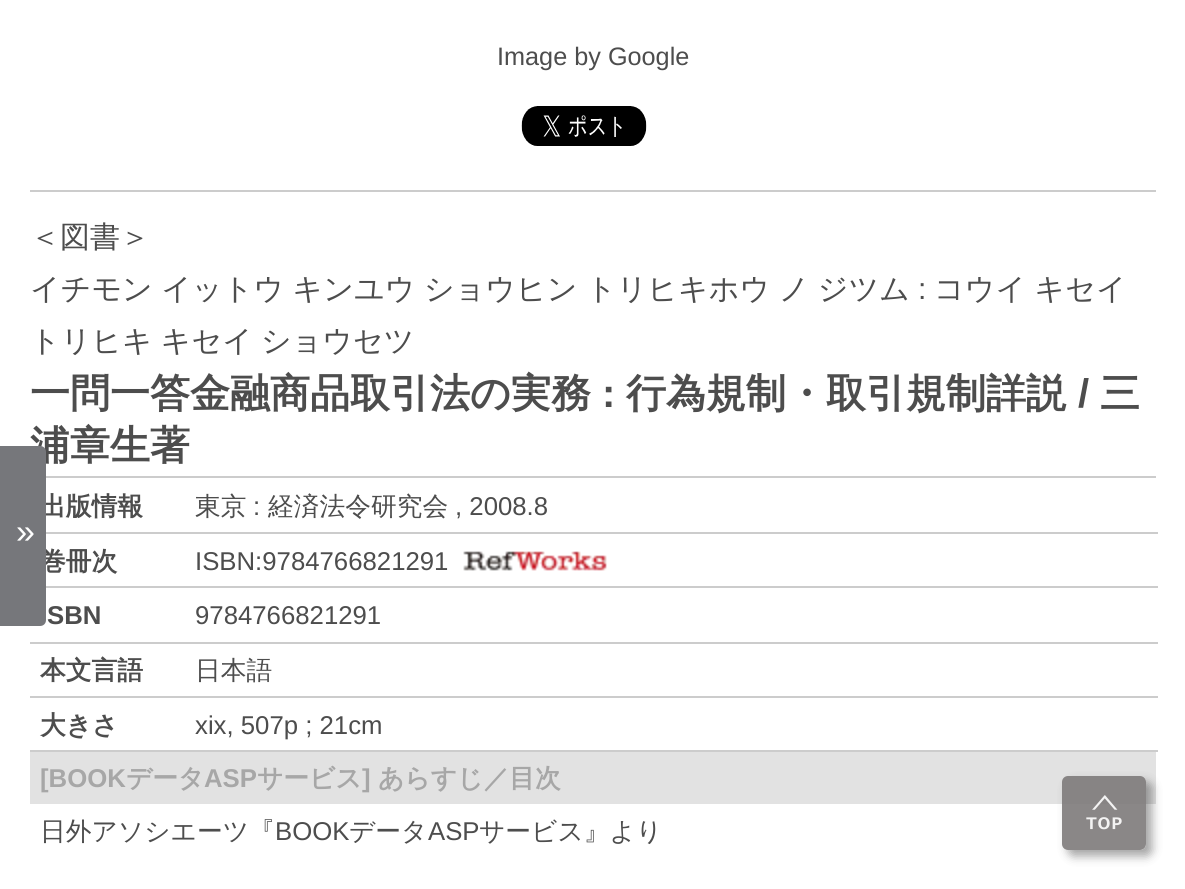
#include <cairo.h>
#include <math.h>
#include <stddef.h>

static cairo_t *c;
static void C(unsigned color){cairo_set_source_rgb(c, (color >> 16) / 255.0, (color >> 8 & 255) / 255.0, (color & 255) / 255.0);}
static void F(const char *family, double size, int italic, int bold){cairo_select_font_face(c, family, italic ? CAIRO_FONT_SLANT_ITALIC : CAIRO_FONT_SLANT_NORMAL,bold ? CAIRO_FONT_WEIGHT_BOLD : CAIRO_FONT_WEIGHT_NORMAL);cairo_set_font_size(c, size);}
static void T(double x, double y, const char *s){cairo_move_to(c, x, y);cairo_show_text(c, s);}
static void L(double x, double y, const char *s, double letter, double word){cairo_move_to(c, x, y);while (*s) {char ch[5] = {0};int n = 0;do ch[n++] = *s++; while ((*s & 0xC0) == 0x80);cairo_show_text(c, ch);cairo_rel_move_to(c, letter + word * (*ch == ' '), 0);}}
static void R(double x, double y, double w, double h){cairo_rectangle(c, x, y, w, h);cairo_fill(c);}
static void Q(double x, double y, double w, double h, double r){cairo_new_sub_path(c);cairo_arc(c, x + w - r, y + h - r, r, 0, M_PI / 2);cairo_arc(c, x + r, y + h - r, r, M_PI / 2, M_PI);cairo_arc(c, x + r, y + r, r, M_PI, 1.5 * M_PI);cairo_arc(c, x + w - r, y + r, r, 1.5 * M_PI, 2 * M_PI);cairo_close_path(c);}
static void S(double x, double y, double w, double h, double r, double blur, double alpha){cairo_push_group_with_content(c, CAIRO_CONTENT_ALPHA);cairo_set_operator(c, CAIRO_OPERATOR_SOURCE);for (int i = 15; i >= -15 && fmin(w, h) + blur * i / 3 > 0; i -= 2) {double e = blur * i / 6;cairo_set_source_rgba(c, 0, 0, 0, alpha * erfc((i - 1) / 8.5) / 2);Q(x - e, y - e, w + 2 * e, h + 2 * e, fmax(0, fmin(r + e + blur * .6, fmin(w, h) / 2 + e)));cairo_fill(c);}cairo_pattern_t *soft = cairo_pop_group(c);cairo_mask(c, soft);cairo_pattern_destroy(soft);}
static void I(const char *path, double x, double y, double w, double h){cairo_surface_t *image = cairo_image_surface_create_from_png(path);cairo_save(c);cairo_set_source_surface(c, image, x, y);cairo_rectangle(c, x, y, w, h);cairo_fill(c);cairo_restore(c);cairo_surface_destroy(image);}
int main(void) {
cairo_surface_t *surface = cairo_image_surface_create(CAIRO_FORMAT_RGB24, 1185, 889);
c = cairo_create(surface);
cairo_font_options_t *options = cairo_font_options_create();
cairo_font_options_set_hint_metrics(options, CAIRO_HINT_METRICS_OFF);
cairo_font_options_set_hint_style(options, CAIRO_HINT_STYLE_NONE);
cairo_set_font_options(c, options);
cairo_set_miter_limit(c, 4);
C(0xffffff);
cairo_paint(c);
F("Liberation Sans",25.25,0,0);
C(0x4d4d4d);
T(497,65,"Image by Google");
I("1.png",521,106,126,40);
C(0xcccccc);
R(30,190,1126,2);
R(46,476,1110,2);
F("WenQuanYi Zen Hei Medium",30,0,0);
C(0x4d4d4d);
T(30,247,"＜図書＞");
L(30,299,"イチモン イットウ キンユウ ショウヒン トリヒキホウ ノ ジツム",0,-.5);
F("Liberation Sans",30,0,0);
T(918,299,":");
F("WenQuanYi Zen Hei Medium",30,0,0);
L(934,299,"コウイ キセイ",0,-.5);
L(30,351,"トリヒキ キセイ ショウセツ",0,-1);
F("WenQuanYi Zen Hei",40,0,1);
T(30,407,"一問一答金融商品取引法の実務");
F("Liberation Sans",40,0,1);
T(602,407,":");
F("WenQuanYi Zen Hei",40,0,1);
T(626,407,"行為規制・取引規制詳説");
F("Liberation Sans",40,0,1);
T(1078,407,"/");
F("WenQuanYi Zen Hei",40,0,1);
T(1100,407,"三");
T(30,459,"浦章生著");
F("WenQuanYi Zen Hei",25.75,0,1);
T(40,515,"出版情報");
T(40,570,"巻冊次");
C(0x76777b);
cairo_new_path(c);
cairo_move_to(c,-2,446);
cairo_line_to(c,40,446);
cairo_curve_to(c,43.5,446,46,448.5,46,452);
cairo_line_to(c,46,620);
cairo_curve_to(c,46,623.5,43.5,626,40,626);
cairo_line_to(c,-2,626);
cairo_close_path(c);
cairo_fill(c);
F("Liberation Sans",34,0,0);
C(0xffffff);
T(16,543,"»");
C(0xcccccc);
R(46,532,1112,2);
F("WenQuanYi Zen Hei Medium",25.75,0,0);
C(0x4d4d4d);
T(195,515,"東京");
F("Liberation Sans",25.75,0,0);
T(253,515,":");
F("WenQuanYi Zen Hei Medium",25.75,0,0);
T(268,515,"経済法令研究会");
F("Liberation Sans",25.75,0,0);
T(455,515,", 2008.8");
C(0xcccccc);
R(46,586,1112,2);
C(0x4d4d4d);
T(195,570,"ISBN:9784766821291");
I("2.png",463,551,144,20);
F("Liberation Sans",25.75,0,1);
T(47,624,"SBN");
C(0xcccccc);
R(30,642,1128,2);
F("Liberation Sans",25.75,0,0);
C(0x4d4d4d);
T(195,624,"9784766821291");
F("WenQuanYi Zen Hei",25.75,0,1);
T(40,679,"本文言語");
C(0xcccccc);
R(30,696,1128,2);
F("WenQuanYi Zen Hei Medium",25.75,0,0);
C(0x4d4d4d);
T(195,679,"日本語");
F("WenQuanYi Zen Hei",25.75,0,1);
T(40,734,"大きさ");
C(0xcccccc);
R(30,750,1128,2);
F("Liberation Sans",25.75,0,0);
C(0x4d4d4d);
T(195,734,"xix, 507p ; 21cm");
C(0xe2e2e2);
R(30,752,1126,52);
F("Liberation Sans",25.75,0,1);
C(0xa7a7a7);
T(40,787,"[BOOK");
F("WenQuanYi Zen Hei",25.75,0,1);
T(126,787,"データ");
F("Liberation Sans",25.75,0,1);
T(204,787,"ASP");
F("WenQuanYi Zen Hei",25.75,0,1);
T(257,787,"サービス");
F("Liberation Sans",25.75,0,1);
T(362,787,"]");
F("WenQuanYi Zen Hei",25.75,0,1);
T(378,787,"あらすじ／目次");
F("WenQuanYi Zen Hei Medium",25.75,0,0);
C(0x4d4d4d);
T(40,840,"日外アソシエーツ『");
F("Liberation Sans",25.75,0,0);
T(275,840,"BOOK");
F("WenQuanYi Zen Hei Medium",25.75,0,0);
T(349,840,"データ");
F("Liberation Sans",25.75,0,0);
T(428,840,"ASP");
F("WenQuanYi Zen Hei Medium",25.75,0,0);
T(479,840,"サービス』より");
cairo_save(c);
cairo_set_fill_rule(c,CAIRO_FILL_RULE_EVEN_ODD);
cairo_new_path(c);
cairo_move_to(c,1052,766);
cairo_line_to(c,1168,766);
cairo_line_to(c,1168,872);
cairo_line_to(c,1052,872);
cairo_close_path(c);
cairo_move_to(c,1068,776);
cairo_line_to(c,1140,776);
cairo_curve_to(c,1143.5,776,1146,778.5,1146,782);
cairo_line_to(c,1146,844);
cairo_curve_to(c,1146,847.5,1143.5,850,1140,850);
cairo_line_to(c,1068,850);
cairo_curve_to(c,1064.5,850,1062,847.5,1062,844);
cairo_line_to(c,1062,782);
cairo_curve_to(c,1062,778.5,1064.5,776,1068,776);
cairo_close_path(c);
cairo_clip(c);
C(0x000000);
S(1068,782,84,74,6,5,.36);
cairo_restore(c);
cairo_set_source_rgba(c,0.494,0.478,0.478,0.9);
Q(1062,776,84,74,6);
cairo_fill(c);
I("3.png",1086,795,36,35);
cairo_surface_write_to_png(surface, "o.png");
cairo_font_options_destroy(options);
cairo_destroy(c);
cairo_surface_destroy(surface);
return 0;
}
